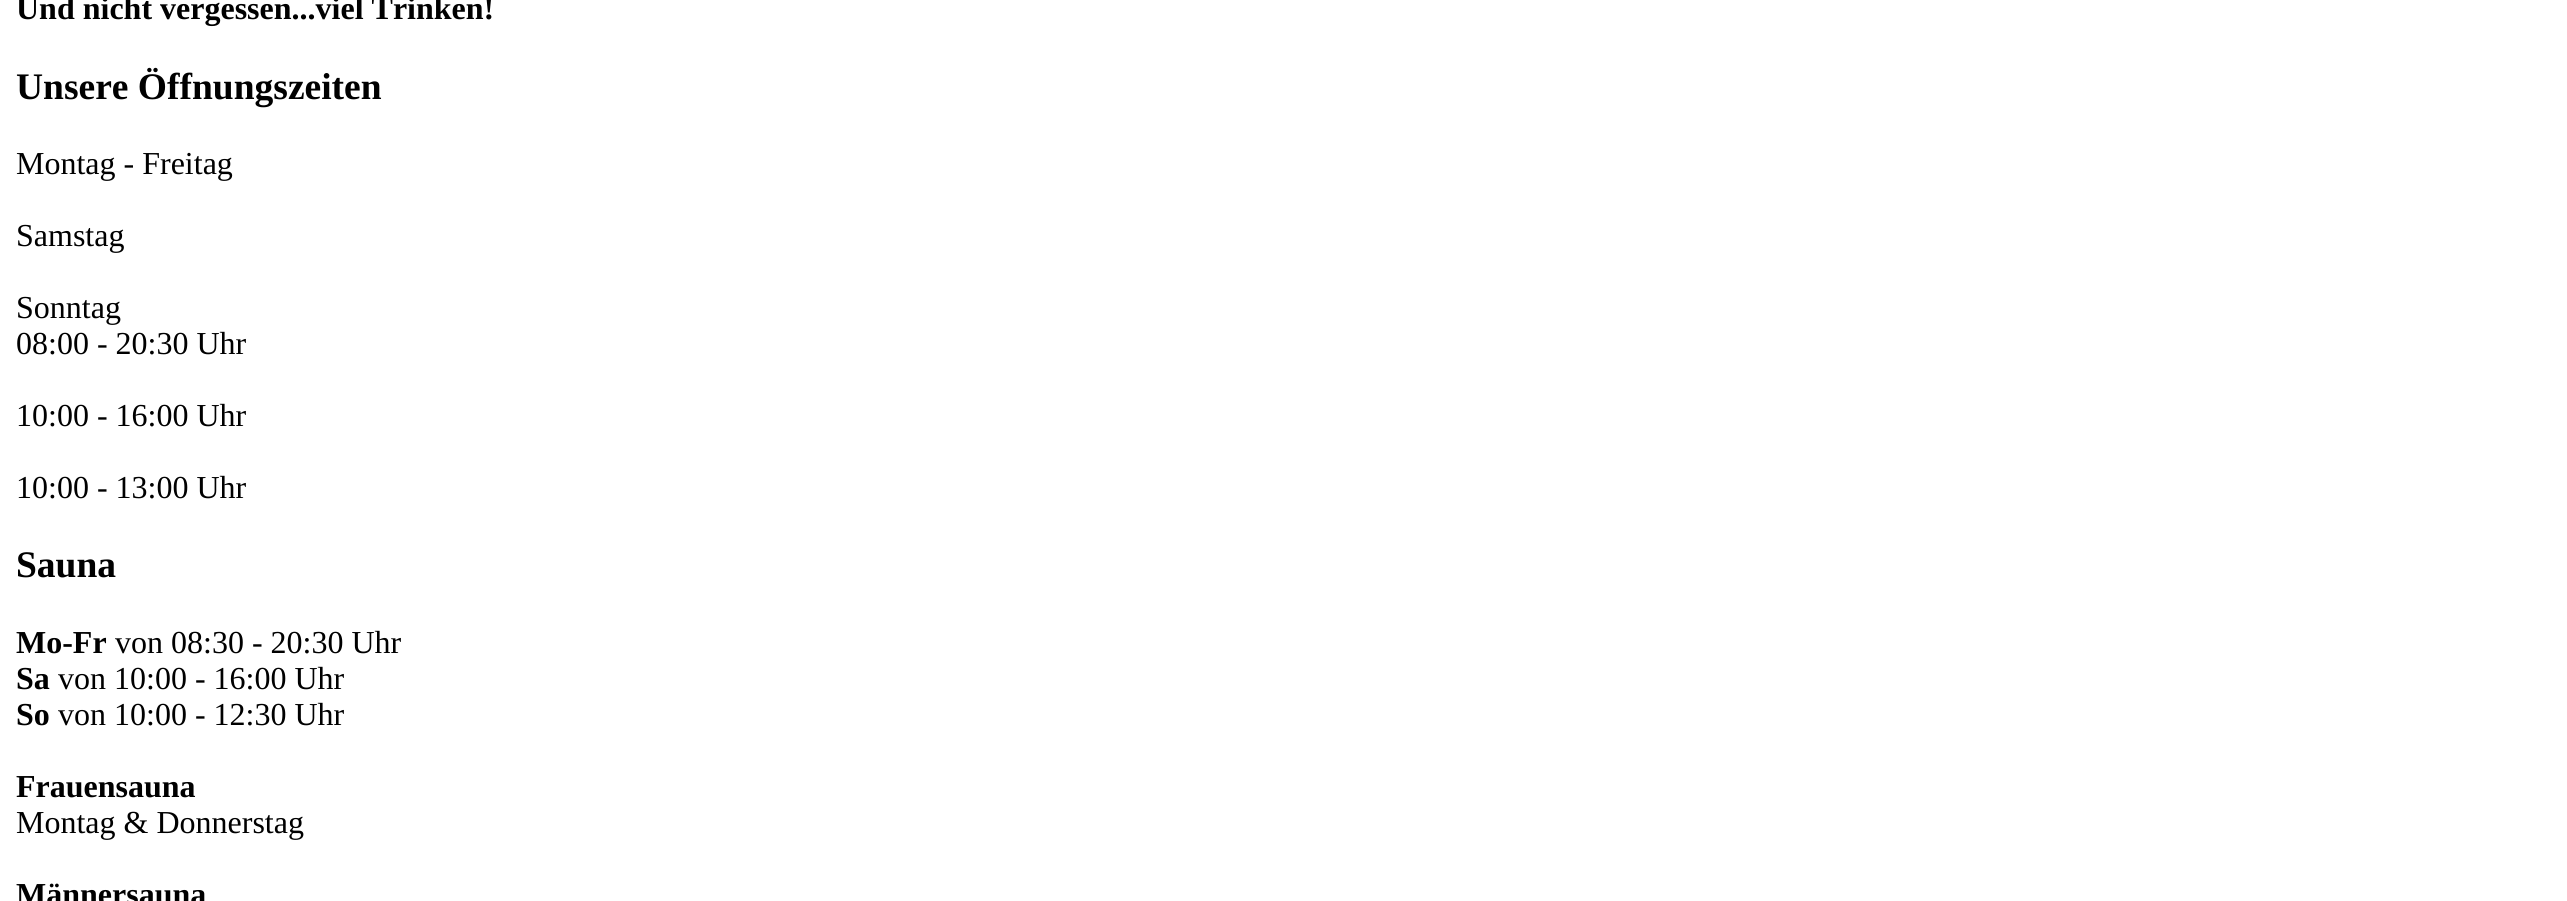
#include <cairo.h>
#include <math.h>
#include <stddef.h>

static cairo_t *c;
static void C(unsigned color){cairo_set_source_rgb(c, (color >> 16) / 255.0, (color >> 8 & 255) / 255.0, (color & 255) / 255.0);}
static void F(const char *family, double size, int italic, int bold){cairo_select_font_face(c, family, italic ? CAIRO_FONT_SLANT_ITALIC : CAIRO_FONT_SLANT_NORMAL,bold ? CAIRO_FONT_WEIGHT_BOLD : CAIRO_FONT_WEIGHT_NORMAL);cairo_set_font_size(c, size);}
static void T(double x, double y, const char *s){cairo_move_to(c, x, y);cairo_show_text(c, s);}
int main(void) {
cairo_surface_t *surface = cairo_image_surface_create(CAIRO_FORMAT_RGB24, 2567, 901);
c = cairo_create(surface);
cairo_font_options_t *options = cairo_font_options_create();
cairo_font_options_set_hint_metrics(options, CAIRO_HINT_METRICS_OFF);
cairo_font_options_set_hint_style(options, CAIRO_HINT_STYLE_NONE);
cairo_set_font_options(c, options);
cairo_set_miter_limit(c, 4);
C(0xffffff);
cairo_paint(c);
F("Liberation Serif",32,0,1);
C(0x000000);
T(16,19,"Und nicht vergessen...viel Trinken!");
F("Liberation Serif",37.5,0,1);
T(16,99,"Unsere Öffnungszeiten");
F("Liberation Serif",32,0,0);
T(16,174,"Montag - Freitag");
T(16,246,"Samstag");
T(16,318,"Sonntag");
T(16,354,"08:00 - 20:30 Uhr");
T(16,426,"10:00 - 16:00 Uhr");
T(16,498,"10:00 - 13:00 Uhr");
F("Liberation Serif",37.5,0,1);
T(16,577,"Sauna");
F("Liberation Serif",32,0,1);
T(16,653,"Mo-Fr");
F("Liberation Serif",32,0,0);
T(115,653,"von 08:30 - 20:30 Uhr");
F("Liberation Serif",32,0,1);
T(16,689,"Sa");
F("Liberation Serif",32,0,0);
T(58,689,"von 10:00 - 16:00 Uhr");
F("Liberation Serif",32,0,1);
T(16,725,"So");
F("Liberation Serif",32,0,0);
T(58,725,"von 10:00 - 12:30 Uhr");
F("Liberation Serif",32,0,1);
T(16,797,"Frauensauna");
F("Liberation Serif",32,0,0);
T(16,833,"Montag & Donnerstag");
F("Liberation Serif",32,0,1);
T(16,905,"Männersauna");
cairo_surface_write_to_png(surface, "o.png");
cairo_font_options_destroy(options);
cairo_destroy(c);
cairo_surface_destroy(surface);
return 0;
}
